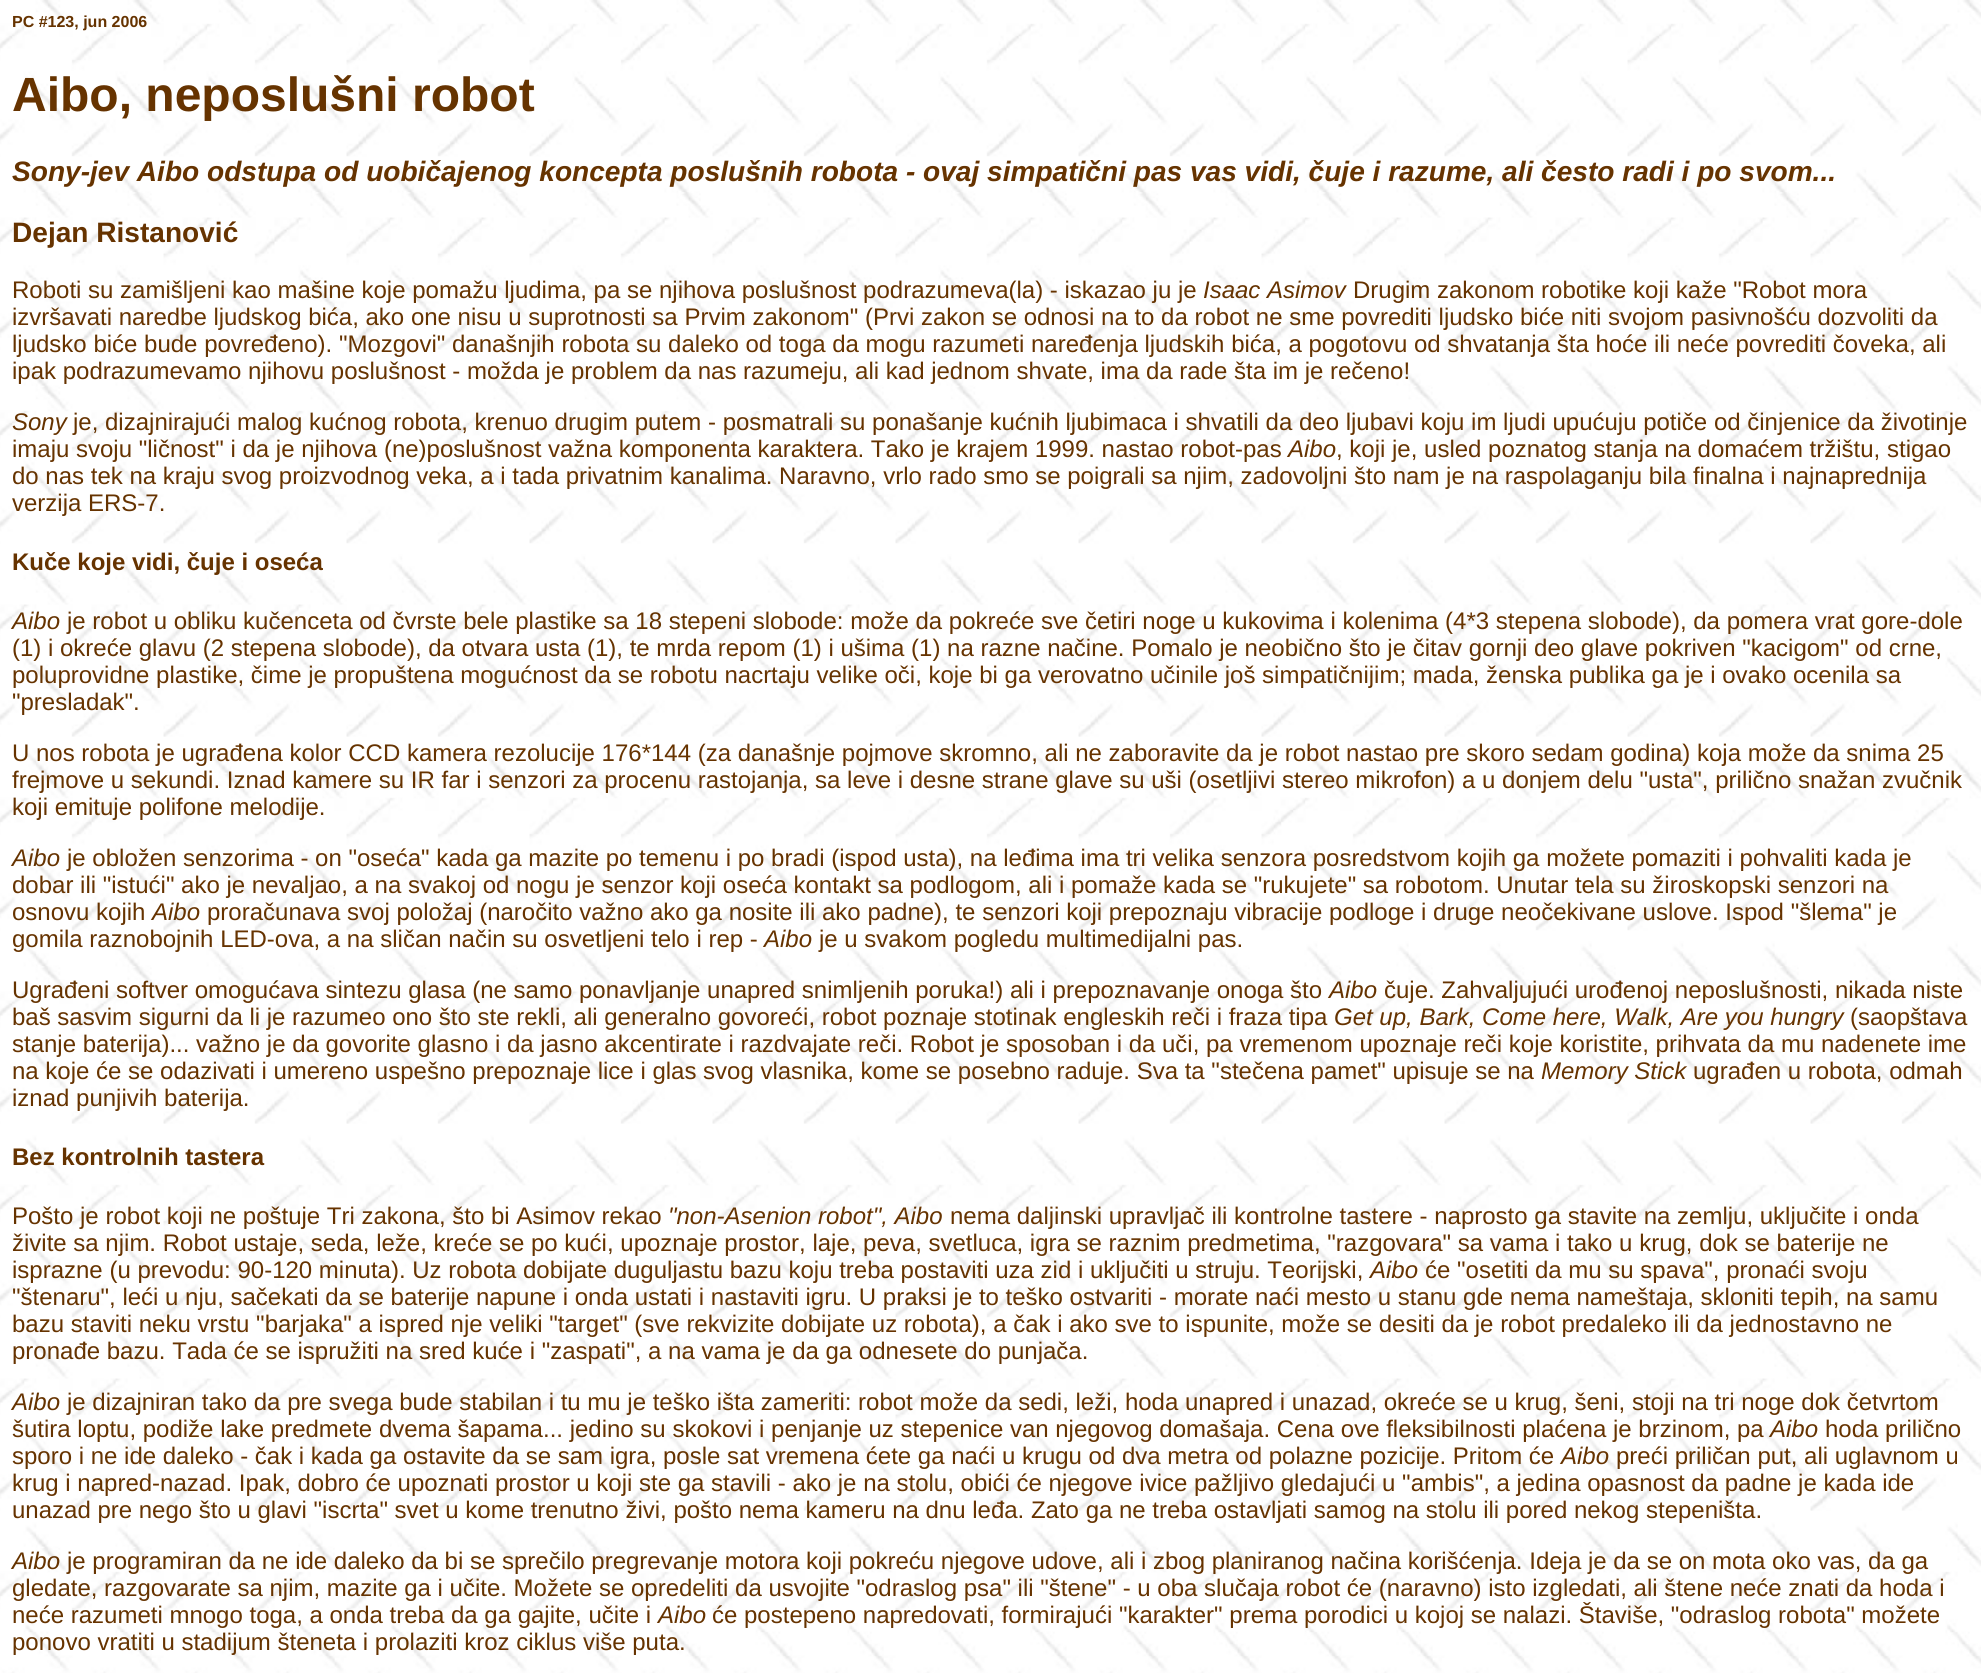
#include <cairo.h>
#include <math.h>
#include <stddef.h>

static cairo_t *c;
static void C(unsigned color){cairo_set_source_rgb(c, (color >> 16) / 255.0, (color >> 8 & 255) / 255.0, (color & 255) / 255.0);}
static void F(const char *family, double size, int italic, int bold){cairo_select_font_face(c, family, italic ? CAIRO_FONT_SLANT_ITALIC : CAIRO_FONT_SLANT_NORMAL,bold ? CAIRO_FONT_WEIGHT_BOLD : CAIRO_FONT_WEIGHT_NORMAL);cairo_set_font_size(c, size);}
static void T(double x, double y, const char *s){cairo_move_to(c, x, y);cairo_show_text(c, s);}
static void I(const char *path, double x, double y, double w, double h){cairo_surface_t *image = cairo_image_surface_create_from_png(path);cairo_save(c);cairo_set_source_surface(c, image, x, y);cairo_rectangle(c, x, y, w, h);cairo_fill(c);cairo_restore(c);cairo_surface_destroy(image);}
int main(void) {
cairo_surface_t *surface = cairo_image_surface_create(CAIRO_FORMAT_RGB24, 1981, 1673);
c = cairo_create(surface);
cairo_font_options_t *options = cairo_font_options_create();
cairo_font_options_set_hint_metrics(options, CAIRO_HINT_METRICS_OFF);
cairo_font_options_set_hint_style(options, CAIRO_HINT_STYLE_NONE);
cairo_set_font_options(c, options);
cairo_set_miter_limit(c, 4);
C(0xffffff);
cairo_paint(c);
I("1.png",0,0,1981,1673);
F("Liberation Sans",16,0,1);
C(0x663300);
T(12,27,"PC #123, jun 2006");
F("Liberation Sans",48,0,1);
T(12,111,"Aibo, neposlušni robot");
F("Liberation Sans",28.08,1,1);
T(12,181,"Sony-jev Aibo odstupa od uobičajenog koncepta poslušnih robota - ovaj simpatični pas vas vidi, čuje i razume, ali često radi i po svom...");
F("Liberation Sans",28.08,0,1);
T(12,242,"Dejan Ristanović");
F("Liberation Sans",24,0,0);
T(12,298,"Roboti su zamišljeni kao mašine koje pomažu ljudima, pa se njihova poslušnost podrazumeva(la) - iskazao ju je");
F("Liberation Sans",24,1,0);
T(1203,298,"Isaac Asimov");
F("Liberation Sans",24,0,0);
T(1353,298,"Drugim zakonom robotike koji kaže \"Robot mora");
T(12,325,"izvršavati naredbe ljudskog bića, ako one nisu u suprotnosti sa Prvim zakonom\" (Prvi zakon se odnosi na to da robot ne sme povrediti ljudsko biće niti svojom pasivnošću dozvoliti da");
T(12,352,"ljudsko biće bude povređeno). \"Mozgovi\" današnjih robota su daleko od toga da mogu razumeti naređenja ljudskih bića, a pogotovu od shvatanja šta hoće ili neće povrediti čoveka, ali");
T(12,379,"ipak podrazumevamo njihovu poslušnost - možda je problem da nas razumeju, ali kad jednom shvate, ima da rade šta im je rečeno!");
F("Liberation Sans",24,1,0);
T(12,430,"Sony");
F("Liberation Sans",24,0,0);
T(73,430,"je, dizajnirajući malog kućnog robota, krenuo drugim putem - posmatrali su ponašanje kućnih ljubimaca i shvatili da deo ljubavi koju im ljudi upućuju potiče od činjenice da životinje");
T(12,457,"imaju svoju \"ličnost\" i da je njihova (ne)poslušnost važna komponenta karaktera. Tako je krajem 1999. nastao robot-pas");
F("Liberation Sans",24,1,0);
T(1288,457,"Aibo");
F("Liberation Sans",24,0,0);
T(1336,457,", koji je, usled poznatog stanja na domaćem tržištu, stigao");
T(12,484,"do nas tek na kraju svog proizvodnog veka, a i tada privatnim kanalima. Naravno, vrlo rado smo se poigrali sa njim, zadovoljni što nam je na raspolaganju bila finalna i najnaprednija");
T(12,511,"verzija ERS-7.");
F("Liberation Sans",24,0,1);
T(12,570,"Kuče koje vidi, čuje i oseća");
F("Liberation Sans",24,1,0);
T(12,629,"Aibo");
F("Liberation Sans",24,0,0);
T(67,629,"je robot u obliku kučenceta od čvrste bele plastike sa 18 stepeni slobode: može da pokreće sve četiri noge u kukovima i kolenima (4*3 stepena slobode), da pomera vrat gore-dole");
T(12,656,"(1) i okreće glavu (2 stepena slobode), da otvara usta (1), te mrda repom (1) i ušima (1) na razne načine. Pomalo je neobično što je čitav gornji deo glave pokriven \"kacigom\" od crne,");
T(12,683,"poluprovidne plastike, čime je propuštena mogućnost da se robotu nacrtaju velike oči, koje bi ga verovatno učinile još simpatičnijim; mada, ženska publika ga je i ovako ocenila sa");
T(12,710,"\"presladak\".");
T(12,761,"U nos robota je ugrađena kolor CCD kamera rezolucije 176*144 (za današnje pojmove skromno, ali ne zaboravite da je robot nastao pre skoro sedam godina) koja može da snima 25");
T(12,788,"frejmove u sekundi. Iznad kamere su IR far i senzori za procenu rastojanja, sa leve i desne strane glave su uši (osetljivi stereo mikrofon) a u donjem delu \"usta\", prilično snažan zvučnik");
T(12,815,"koji emituje polifone melodije.");
F("Liberation Sans",24,1,0);
T(12,866,"Aibo");
F("Liberation Sans",24,0,0);
T(67,866,"je obložen senzorima - on \"oseća\" kada ga mazite po temenu i po bradi (ispod usta), na leđima ima tri velika senzora posredstvom kojih ga možete pomaziti i pohvaliti kada je");
T(12,893,"dobar ili \"istući\" ako je nevaljao, a na svakoj od nogu je senzor koji oseća kontakt sa podlogom, ali i pomaže kada se \"rukujete\" sa robotom. Unutar tela su žiroskopski senzori na");
T(12,920,"osnovu kojih");
F("Liberation Sans",24,1,0);
T(152,920,"Aibo");
F("Liberation Sans",24,0,0);
T(207,920,"proračunava svoj položaj (naročito važno ako ga nosite ili ako padne), te senzori koji prepoznaju vibracije podloge i druge neočekivane uslove. Ispod \"šlema\" je");
T(12,947,"gomila raznobojnih LED-ova, a na sličan način su osvetljeni telo i rep -");
F("Liberation Sans",24,1,0);
T(764,947,"Aibo");
F("Liberation Sans",24,0,0);
T(819,947,"je u svakom pogledu multimedijalni pas.");
T(12,998,"Ugrađeni softver omogućava sintezu glasa (ne samo ponavljanje unapred snimljenih poruka!) ali i prepoznavanje onoga što");
F("Liberation Sans",24,1,0);
T(1329,998,"Aibo");
F("Liberation Sans",24,0,0);
T(1384,998,"čuje. Zahvaljujući urođenoj neposlušnosti, nikada niste");
T(12,1025,"baš sasvim sigurni da li je razumeo ono što ste rekli, ali generalno govoreći, robot poznaje stotinak engleskih reči i fraza tipa");
F("Liberation Sans",24,1,0);
T(1334,1025,"Get up, Bark, Come here, Walk, Are you hungry");
F("Liberation Sans",24,0,0);
T(1850,1025,"(saopštava");
T(12,1052,"stanje baterija)... važno je da govorite glasno i da jasno akcentirate i razdvajate reči. Robot je sposoban i da uči, pa vremenom upoznaje reči koje koristite, prihvata da mu nadenete ime");
T(12,1079,"na koje će se odazivati i umereno uspešno prepoznaje lice i glas svog vlasnika, kome se posebno raduje. Sva ta \"stečena pamet\" upisuje se na");
F("Liberation Sans",24,1,0);
T(1541,1079,"Memory Stick");
F("Liberation Sans",24,0,0);
T(1693,1079,"ugrađen u robota, odmah");
T(12,1106,"iznad punjivih baterija.");
F("Liberation Sans",24,0,1);
T(12,1165,"Bez kontrolnih tastera");
F("Liberation Sans",24,0,0);
T(12,1224,"Pošto je robot koji ne poštuje Tri zakona, što bi Asimov rekao");
F("Liberation Sans",24,1,0);
T(668,1224,"\"non-Asenion robot\", Aibo");
F("Liberation Sans",24,0,0);
T(950,1224,"nema daljinski upravljač ili kontrolne tastere - naprosto ga stavite na zemlju, uključite i onda");
T(12,1251,"živite sa njim. Robot ustaje, seda, leže, kreće se po kući, upoznaje prostor, laje, peva, svetluca, igra se raznim predmetima, \"razgovara\" sa vama i tako u krug, dok se baterije ne");
T(12,1278,"isprazne (u prevodu: 90-120 minuta). Uz robota dobijate duguljastu bazu koju treba postaviti uza zid i uključiti u struju. Teorijski,");
F("Liberation Sans",24,1,0);
T(1370,1278,"Aibo");
F("Liberation Sans",24,0,0);
T(1425,1278,"će \"osetiti da mu su spava\", pronaći svoju");
T(12,1305,"\"štenaru\", leći u nju, sačekati da se baterije napune i onda ustati i nastaviti igru. U praksi je to teško ostvariti - morate naći mesto u stanu gde nema nameštaja, skloniti tepih, na samu");
T(12,1332,"bazu staviti neku vrstu \"barjaka\" a ispred nje veliki \"target\" (sve rekvizite dobijate uz robota), a čak i ako sve to ispunite, može se desiti da je robot predaleko ili da jednostavno ne");
T(12,1359,"pronađe bazu. Tada će se ispružiti na sred kuće i \"zaspati\", a na vama je da ga odnesete do punjača.");
F("Liberation Sans",24,1,0);
T(12,1410,"Aibo");
F("Liberation Sans",24,0,0);
T(67,1410,"je dizajniran tako da pre svega bude stabilan i tu mu je teško išta zameriti: robot može da sedi, leži, hoda unapred i unazad, okreće se u krug, šeni, stoji na tri noge dok četvrtom");
T(12,1437,"šutira loptu, podiže lake predmete dvema šapama... jedino su skokovi i penjanje uz stepenice van njegovog domašaja. Cena ove fleksibilnosti plaćena je brzinom, pa");
F("Liberation Sans",24,1,0);
T(1770,1437,"Aibo");
F("Liberation Sans",24,0,0);
T(1825,1437,"hoda prilično");
T(12,1464,"sporo i ne ide daleko - čak i kada ga ostavite da se sam igra, posle sat vremena ćete ga naći u krugu od dva metra od polazne pozicije. Pritom će");
F("Liberation Sans",24,1,0);
T(1561,1464,"Aibo");
F("Liberation Sans",24,0,0);
T(1616,1464,"preći priličan put, ali uglavnom u");
T(12,1491,"krug i napred-nazad. Ipak, dobro će upoznati prostor u koji ste ga stavili - ako je na stolu, obići će njegove ivice pažljivo gledajući u \"ambis\", a jedina opasnost da padne je kada ide");
T(12,1518,"unazad pre nego što u glavi \"iscrta\" svet u kome trenutno živi, pošto nema kameru na dnu leđa. Zato ga ne treba ostavljati samog na stolu ili pored nekog stepeništa.");
F("Liberation Sans",24,1,0);
T(12,1569,"Aibo");
F("Liberation Sans",24,0,0);
T(67,1569,"je programiran da ne ide daleko da bi se sprečilo pregrevanje motora koji pokreću njegove udove, ali i zbog planiranog načina korišćenja. Ideja je da se on mota oko vas, da ga");
T(12,1596,"gledate, razgovarate sa njim, mazite ga i učite. Možete se opredeliti da usvojite \"odraslog psa\" ili \"štene\" - u oba slučaja robot će (naravno) isto izgledati, ali štene neće znati da hoda i");
T(12,1623,"neće razumeti mnogo toga, a onda treba da ga gajite, učite i");
F("Liberation Sans",24,1,0);
T(658,1623,"Aibo");
F("Liberation Sans",24,0,0);
T(712,1623,"će postepeno napredovati, formirajući \"karakter\" prema porodici u kojoj se nalazi. Štaviše, \"odraslog robota\" možete");
T(12,1650,"ponovo vratiti u stadijum šteneta i prolaziti kroz ciklus više puta.");
cairo_surface_write_to_png(surface, "o.png");
cairo_font_options_destroy(options);
cairo_destroy(c);
cairo_surface_destroy(surface);
return 0;
}
